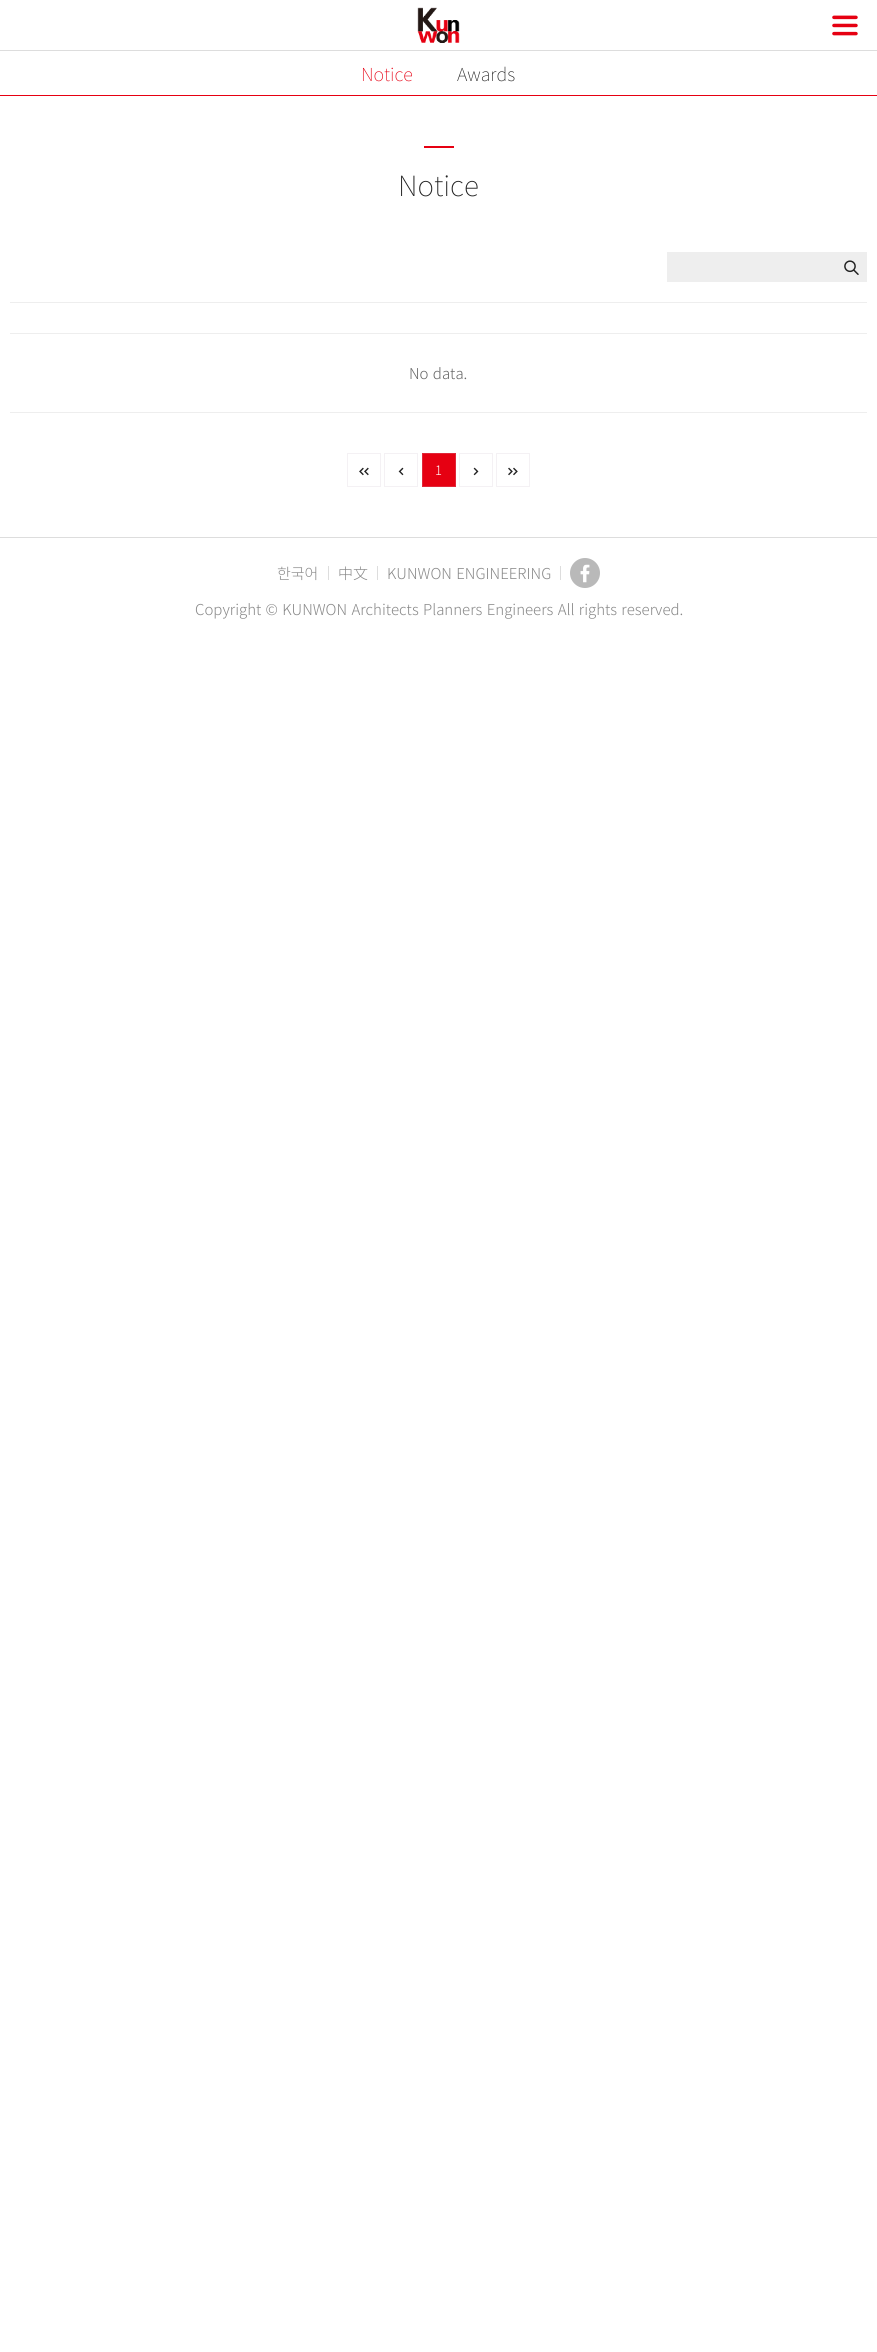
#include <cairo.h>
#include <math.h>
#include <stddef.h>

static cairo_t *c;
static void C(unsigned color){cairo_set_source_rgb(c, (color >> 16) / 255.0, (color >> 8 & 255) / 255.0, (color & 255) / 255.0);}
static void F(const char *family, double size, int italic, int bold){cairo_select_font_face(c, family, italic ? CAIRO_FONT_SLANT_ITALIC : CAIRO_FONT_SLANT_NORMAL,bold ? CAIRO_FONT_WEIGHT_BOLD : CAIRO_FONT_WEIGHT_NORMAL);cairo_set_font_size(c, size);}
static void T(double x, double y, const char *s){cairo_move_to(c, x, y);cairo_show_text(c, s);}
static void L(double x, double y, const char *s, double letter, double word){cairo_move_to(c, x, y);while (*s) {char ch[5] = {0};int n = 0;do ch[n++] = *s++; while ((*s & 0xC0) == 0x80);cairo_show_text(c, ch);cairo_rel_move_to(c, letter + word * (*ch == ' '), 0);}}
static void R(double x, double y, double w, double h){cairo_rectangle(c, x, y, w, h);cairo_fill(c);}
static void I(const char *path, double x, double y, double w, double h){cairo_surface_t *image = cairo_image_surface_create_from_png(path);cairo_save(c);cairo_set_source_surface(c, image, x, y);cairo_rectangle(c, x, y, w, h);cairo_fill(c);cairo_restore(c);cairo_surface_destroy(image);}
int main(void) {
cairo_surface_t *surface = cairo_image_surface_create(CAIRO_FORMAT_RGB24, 877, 2352);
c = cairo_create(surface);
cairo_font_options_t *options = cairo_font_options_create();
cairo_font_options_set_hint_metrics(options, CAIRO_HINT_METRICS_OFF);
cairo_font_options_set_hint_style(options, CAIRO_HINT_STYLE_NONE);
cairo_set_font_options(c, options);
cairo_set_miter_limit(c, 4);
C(0xffffff);
cairo_paint(c);
C(0xdddddd);
R(0,50,877,1);
I("1.png",417,7,43,36);
I("2.png",832,15,26,21);
F("Noto Sans KR Thin",18,0,0);
C(0xe60012);
T(361,81,"Notice");
C(0x222222);
T(457,81,"Awards");
C(0xe60012);
R(0,95,877,1);
R(424,146,30,2);
F("Noto Sans KR Thin",28,0,0);
C(0x222222);
T(398,196,"Notice");
C(0xeeeeee);
R(10,302,857,1);
R(667,252,200,30);
I("3.png",844,260,15,15);
R(10,333,857,1);
R(10,412,857,1);
F("Noto Sans KR Light",15,0,0);
C(0x666666);
L(409,379,"No data.",0,1);
cairo_rectangle(c,347.5,453.5,33,33);
C(0xf4f1f4);
cairo_set_line_width(c,1);
cairo_stroke(c);
I("4.png",359,467,10,9);
cairo_rectangle(c,384.5,453.5,33,33);
cairo_stroke(c);
I("5.png",398,467,6,9);
C(0xe60012);
cairo_rectangle(c,422.5,453.5,33,33);
cairo_fill_preserve(c);
C(0xe02739);
cairo_stroke(c);
F("Noto Sans KR Light",13,0,0);
C(0xffffff);
T(435,475,"1");
cairo_rectangle(c,459.5,453.5,33,33);
C(0xf4f1f4);
cairo_stroke(c);
I("6.png",473,467,6,9);
cairo_rectangle(c,496.5,453.5,33,33);
cairo_stroke(c);
I("7.png",508,467,10,9);
C(0xdddddd);
R(0,537,877,1);
F("Noto Sans KR Light",15,0,0);
C(0x888888);
T(277,579,"한국어");
C(0xdddddd);
R(328,566,1,14);
C(0x888888);
T(338,579,"中文");
C(0xdddddd);
R(377,566,1,14);
C(0x888888);
L(387,579,"KUNWON ENGINEERING",0,1);
C(0xdddddd);
R(560,566,1,14);
I("8.png",570,558,30,30);
C(0x888888);
L(195,615,"Copyright © KUNWON Architects Planners Engineers All rights reserved.",0,1);
cairo_surface_write_to_png(surface, "o.png");
cairo_font_options_destroy(options);
cairo_destroy(c);
cairo_surface_destroy(surface);
return 0;
}
